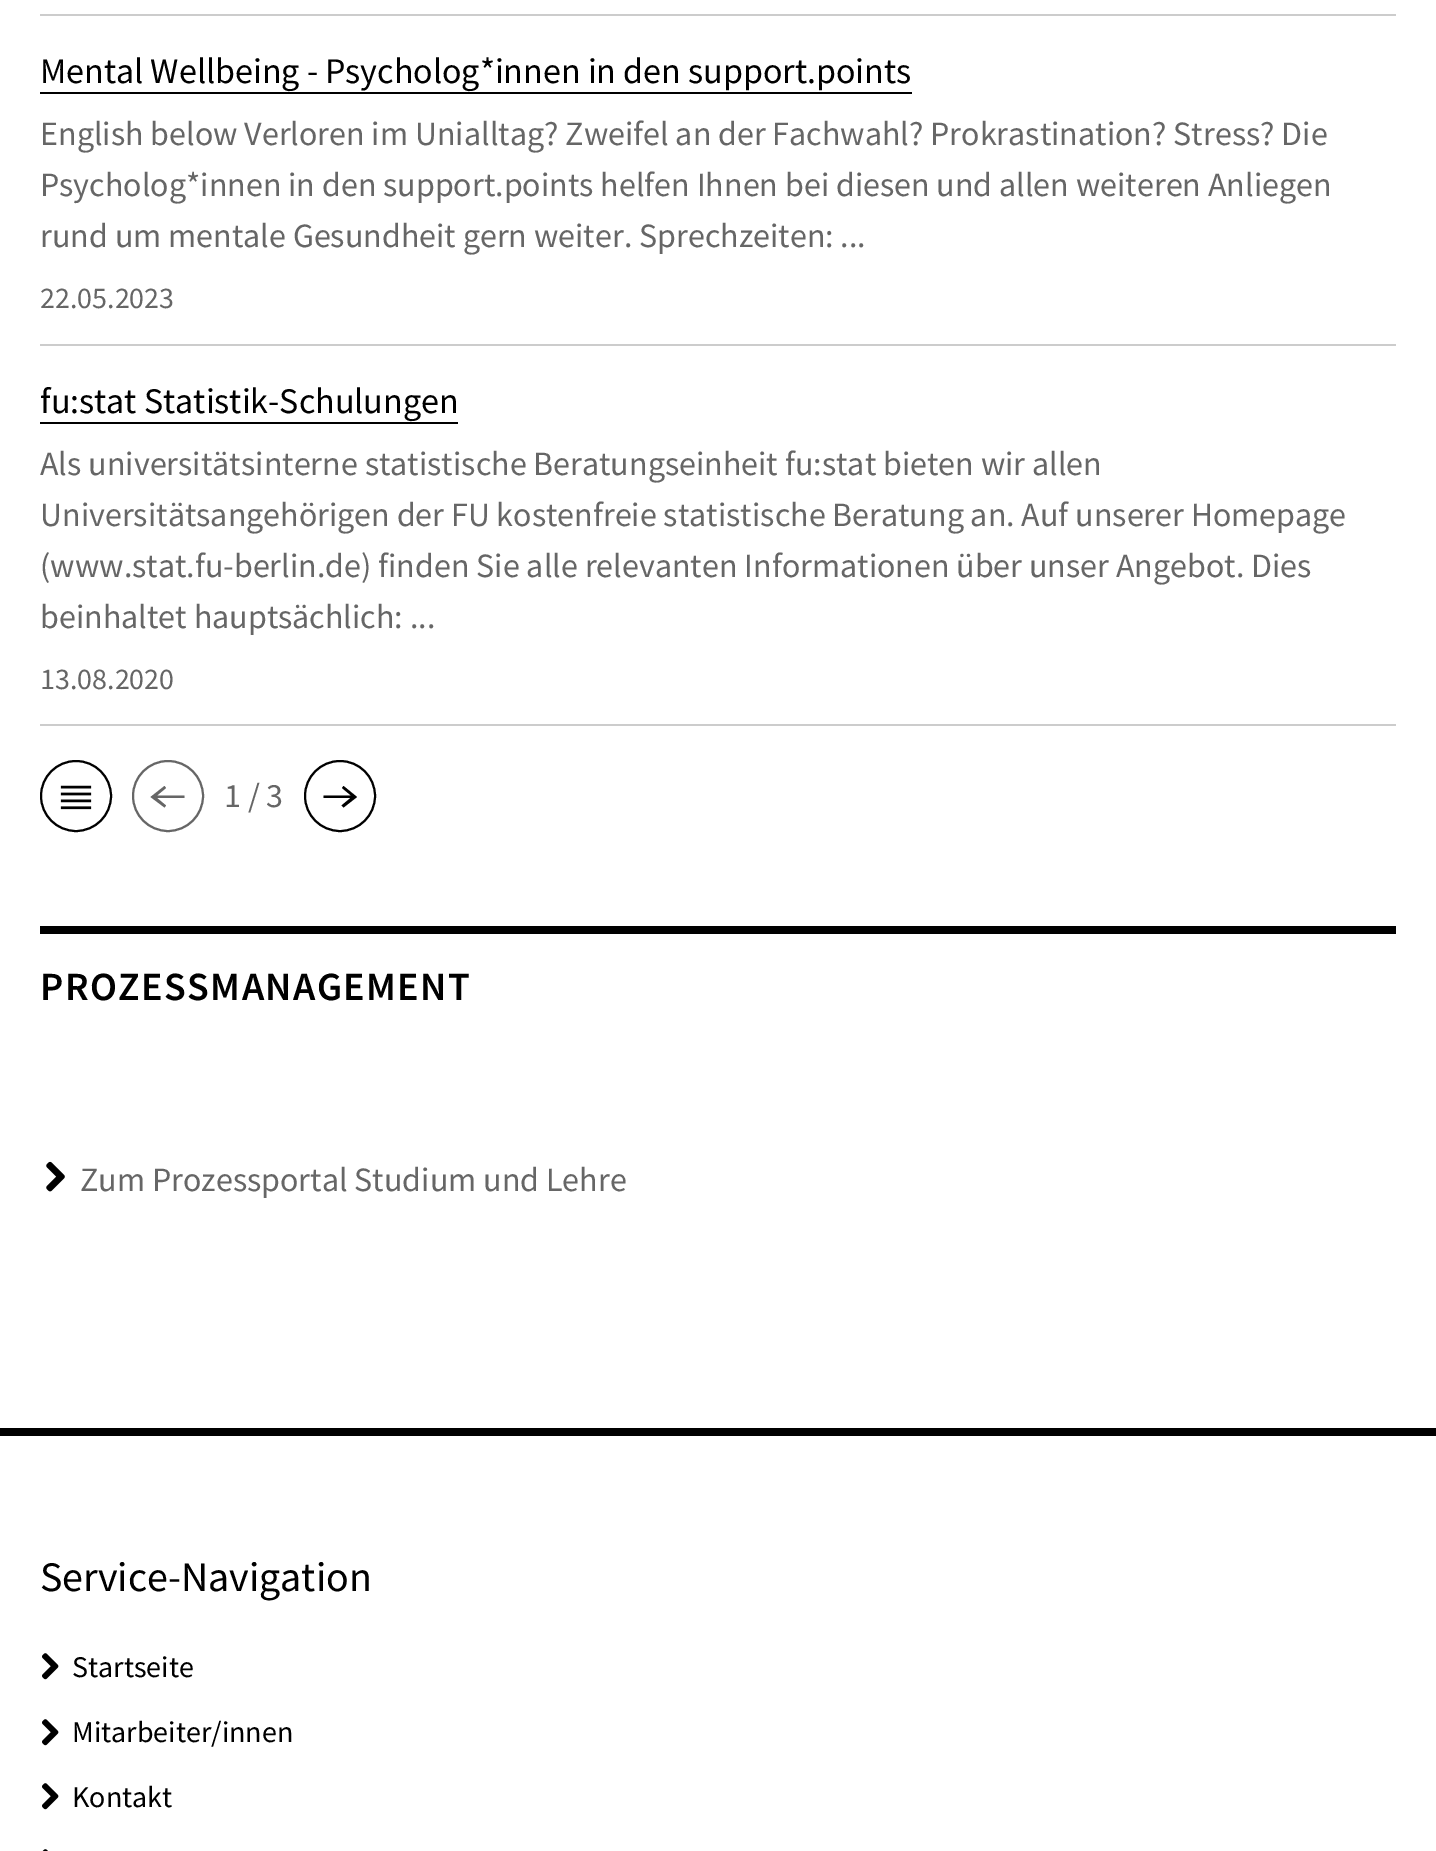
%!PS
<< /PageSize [1436 1851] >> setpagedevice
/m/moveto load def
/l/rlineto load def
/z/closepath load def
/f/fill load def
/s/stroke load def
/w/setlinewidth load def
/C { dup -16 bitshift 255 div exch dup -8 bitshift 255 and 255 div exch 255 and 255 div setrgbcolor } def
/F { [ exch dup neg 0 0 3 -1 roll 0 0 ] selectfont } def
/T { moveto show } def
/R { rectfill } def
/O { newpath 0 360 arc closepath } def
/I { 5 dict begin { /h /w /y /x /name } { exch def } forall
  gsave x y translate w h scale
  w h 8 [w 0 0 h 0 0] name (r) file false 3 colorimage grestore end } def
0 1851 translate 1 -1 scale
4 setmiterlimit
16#FFFFFF C
0 0 1436 1851 R
16#CCCCCC C
40 14 1356 2 R
40 344 1356 2 R
/SourceSansPro-Regular 36 F
16#000000 C
(Mental Wellbeing - Psycholog*innen in den support.points) 40 83 T
40 92 872 2 R
/SourceSansPro-Regular 34 F
16#666666 C
(English below Verloren im Unialltag? Zweifel an der Fachwahl? Prokrastination? Stress? Die) 40 145 T
(Psycholog*innen in den support.points helfen Ihnen bei diesen und allen weiteren Anliegen) 40 196 T
(rund um mentale Gesundheit gern weiter. Sprechzeiten: ...) 40 247 T
/SourceSansPro-Regular 30 F
(22.05.2023) 40 308 T
16#CCCCCC C
40 724 1356 2 R
/SourceSansPro-Regular 36 F
16#000000 C
(fu:stat Statistik-Schulungen) 40 413 T
40 422 418 2 R
/SourceSansPro-Regular 34 F
16#666666 C
(Als universitätsinterne statistische Beratungseinheit fu:stat bieten wir allen) 40 475 T
(Universitätsangehörigen der FU kostenfreie statistische Beratung an. Auf unserer Homepage) 40 526 T
(\(www.stat.fu-berlin.de\) finden Sie alle relevanten Informationen über unser Angebot. Dies) 40 577 T
(beinhaltet hauptsächlich: ...) 40 628 T
/SourceSansPro-Regular 30 F
(13.08.2020) 40 689 T
16#000000 C
2 w
76 796 35 O s
(1.rgb) 60 785 32 25 I
16#666666 C
168 796 35 O s
184.5 795.5 m -27.5 0 l 9 -7.5 l -1.5 -2 l -14 11 l 14 10.5 l 1.5 -2 l -9 -7.5 l 27.5 0 l z f
/SourceSansPro-Regular 34 F
(1 / 3) 224 807 T
16#000000 C
340 796 35 O s
343.5 786 m -1.5 2 l 9 7.5 l -27.5 0 l 0 2.5 l 27 0 l -9 7.5 l 2 2 l 13.5 -10.5 l z f
40 926 1356 8 R
/SourceSansPro-SemiBold 40 F
40 1000 m 1.4 0 (PROZESSMANAGEMENT) ashow
(2.rgb) 46 1161 19 31 I
/SourceSansPro-Regular 34 F
16#666666 C
(Zum Prozessportal Studium und Lehre) 80 1191 T
16#000000 C
0 1428 1436 8 R
/SourceSansPro-Regular 42 F
(Service-Navigation) 40 1591 T
(3.rgb) 42 1653 17 27 I
/SourceSansPro-Regular 30 F
(Startseite) 72 1677 T
(3.rgb) 42 1719 17 27 I
(Mitarbeiter/innen) 72 1742 T
(3.rgb) 42 1783 17 27 I
(Kontakt) 72 1807 T
(4.rgb) 42 1849 6 2 I
showpage
